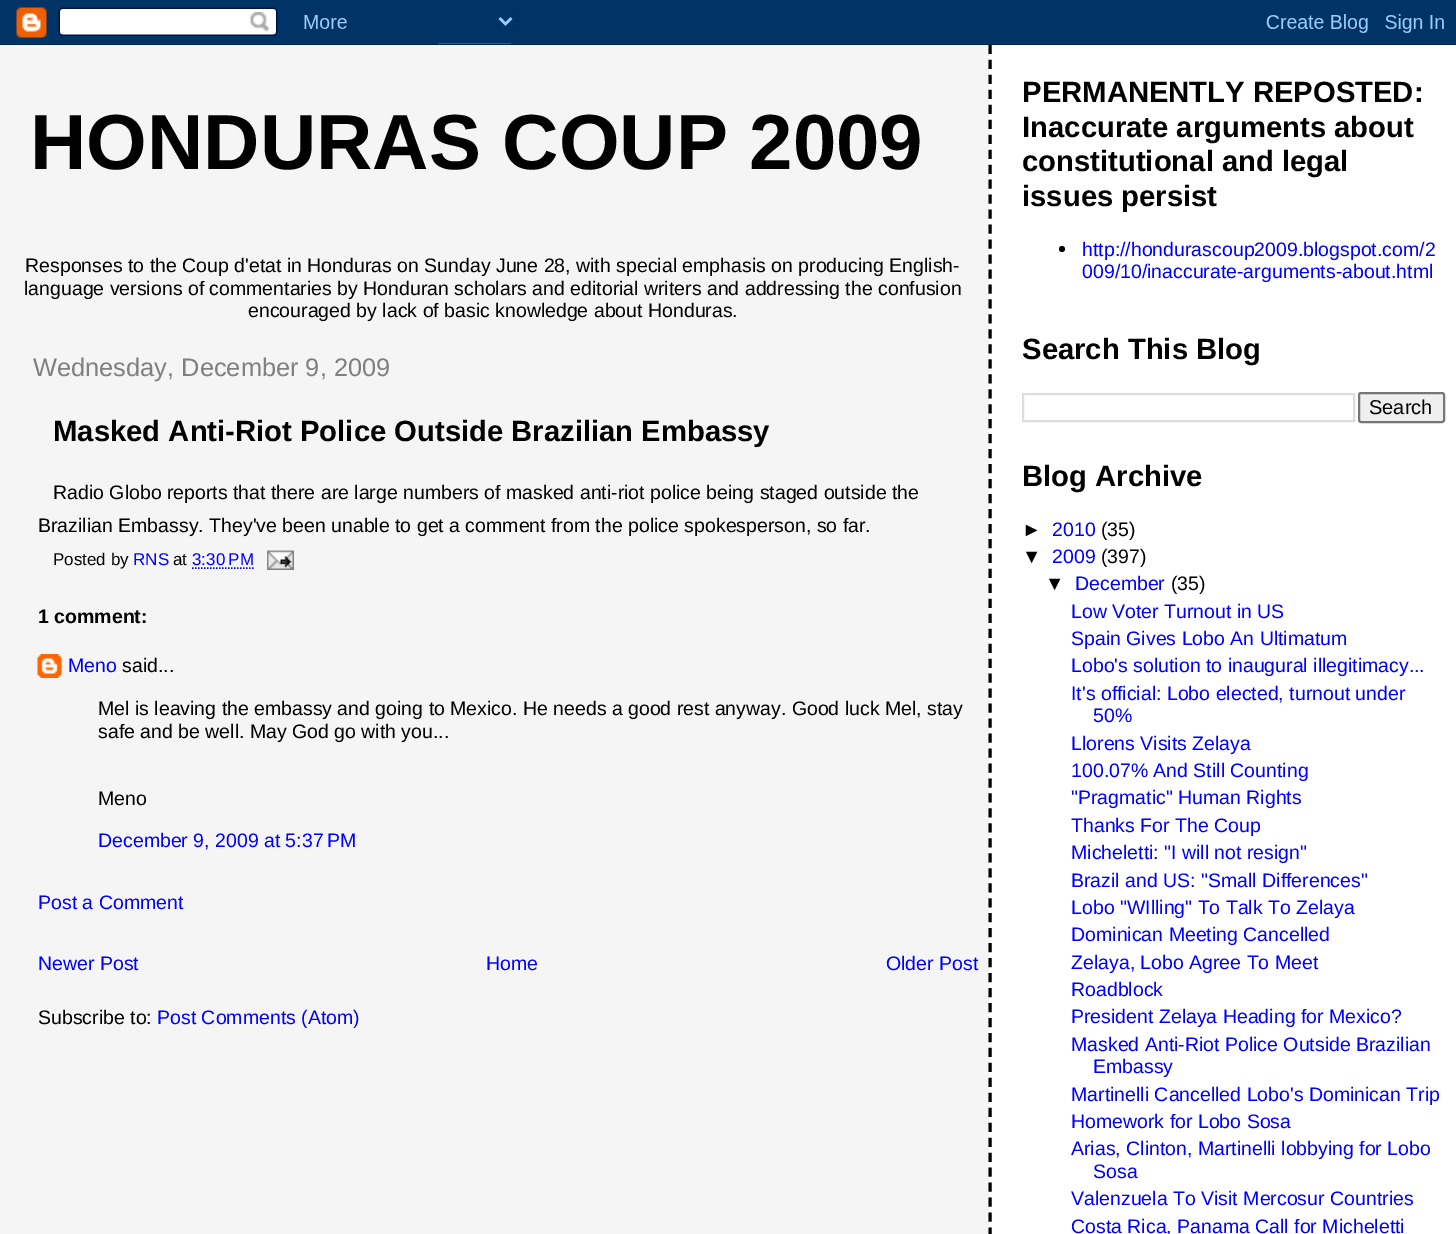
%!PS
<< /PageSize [1456 1234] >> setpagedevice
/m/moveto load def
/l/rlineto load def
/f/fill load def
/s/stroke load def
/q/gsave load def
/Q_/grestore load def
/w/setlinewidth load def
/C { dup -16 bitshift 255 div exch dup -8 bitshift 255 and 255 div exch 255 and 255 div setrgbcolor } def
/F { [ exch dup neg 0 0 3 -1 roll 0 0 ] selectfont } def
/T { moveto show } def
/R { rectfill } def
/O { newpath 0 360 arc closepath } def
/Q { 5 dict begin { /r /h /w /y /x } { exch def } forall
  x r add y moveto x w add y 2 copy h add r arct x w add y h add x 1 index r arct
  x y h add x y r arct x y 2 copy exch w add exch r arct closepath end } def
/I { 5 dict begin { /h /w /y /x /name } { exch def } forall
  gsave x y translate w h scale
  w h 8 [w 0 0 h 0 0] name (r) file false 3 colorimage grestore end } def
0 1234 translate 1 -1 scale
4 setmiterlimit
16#F5F5F5 C
0 0 1456 1234 R
(1.rgb) 0 0 1456 45 I
/LiberationSans-Bold 78 F
16#000000 C
(HONDURAS COUP 2009) 30 169 T
/LiberationSans-Regular 19.5 F
(Responses to the Coup d'etat in Honduras on Sunday June 28, with special emphasis on producing English-) 25 272 T
(language versions of commentaries by Honduran scholars and editorial writers and addressing the confusion) 24 295 T
(encouraged by lack of basic knowledge about Honduras.) 248 317 T
/LiberationSans-Regular 25.4 F
16#808080 C
(Wednesday, December 9, 2009) 33 376 T
/LiberationSans-Bold 29.25 F
16#000000 C
(Masked Anti-Riot Police Outside Brazilian Embassy) 53 441 T
/LiberationSans-Regular 19.5 F
(Radio Globo reports that there are large numbers of masked anti-riot police being staged outside the) 53 499 T
(Brazilian Embassy. They've been unable to get a comment from the police spokesperson, so far.) 38 532 T
/LiberationSans-Regular 17 F
(Posted by) 53 565 T
16#0000FF C
(RNS) 133 565 T
16#000000 C
(at) 173 565 T
16#0000FF C
(3:30 PM) 192 565 T
1.5 w
[1.5 1.5] 0 setdash
192 568 m 61.5 0 l s
(2.rgb) 267 550 27 20 I
/LiberationSans-Bold 19.5 F
16#000000 C
(1 comment:) 38 623 T
(3.rgb) 37 654 25 24 I
/LiberationSans-Regular 19.5 F
16#0000FF C
(Meno) 68 672 T
16#000000 C
(said...) 122 672 T
(Mel is leaving the embassy and going to Mexico. He needs a good rest anyway. Good luck Mel, stay) 98 715 T
(safe and be well. May God go with you...) 98 738 T
(Meno) 98 805 T
16#0000FF C
(December 9, 2009 at 5:37 PM) 98 847 T
(Post a Comment) 38 909 T
(Newer Post) 38 970 T
(Home) 486 970 T
(Older Post) 886 970 T
16#000000 C
(Subscribe to:) 38 1024 T
16#0000FF C
(Post Comments \(Atom\)) 157 1024 T
16#FFFFFF C
989 45 467 1189 R
16#000000 C
3 w
[9 5.97] 0 setdash
990 45 m 0 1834.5 l s
/LiberationSans-Bold 29.25 F
(PERMANENTLY REPOSTED:) 1022 102 T
(Inaccurate arguments about) 1022 137 T
(constitutional and legal) 1022 171 T
(issues persist) 1022 206 T
1062 249 3 O f
/LiberationSans-Regular 19.5 F
16#0000FF C
(http://hondurascoup2009.blogspot.com/2) 1082 256 T
(009/10/inaccurate-arguments-about.html) 1082 278 T
/LiberationSans-Bold 29.25 F
16#000000 C
(Search This Blog) 1022 359 T
16#DDDDDD C
2 w
[] 0 setdash
1023 394 331 27 rectstroke
16#EFEFEF C
1359 393 85 29 2 Q q f Q_
16#767676 C
s
/LiberationSans-Regular 20 F
16#000000 C
(Search) 1369 414 T
/LiberationSans-Bold 29.25 F
(Blog Archive) 1022 486 T
/LiberationSans-Regular 19.5 F
(►) 1022 536 T
16#0000FF C
(2010) 1052 536 T
16#000000 C
(\(35\)) 1101 536 T
(▼) 1022 563 T
16#0000FF C
(2009) 1052 563 T
16#000000 C
(\(397\)) 1101 563 T
(▼) 1045 590 T
16#0000FF C
(December) 1075 590 T
16#000000 C
(\(35\)) 1171 590 T
16#0000FF C
(Low Voter Turnout in US) 1071 618 T
(Spain Gives Lobo An Ultimatum) 1071 645 T
(Lobo's solution to inaugural illegitimacy...) 1071 672 T
(It's official: Lobo elected, turnout under) 1071 700 T
(50%) 1093 722 T
(Llorens Visits Zelaya) 1071 750 T
(100.07% And Still Counting) 1071 777 T
("Pragmatic" Human Rights) 1071 804 T
(Thanks For The Coup) 1071 832 T
(Micheletti: "I will not resign") 1071 859 T
(Brazil and US: "Small Differences") 1071 887 T
(Lobo "WIlling" To Talk To Zelaya) 1071 914 T
(Dominican Meeting Cancelled) 1071 941 T
(Zelaya, Lobo Agree To Meet) 1071 969 T
(Roadblock) 1071 996 T
(President Zelaya Heading for Mexico?) 1071 1023 T
(Masked Anti-Riot Police Outside Brazilian) 1071 1051 T
(Embassy) 1093 1073 T
(Martinelli Cancelled Lobo's Dominican Trip) 1071 1101 T
(Homework for Lobo Sosa) 1071 1128 T
(Arias, Clinton, Martinelli lobbying for Lobo) 1071 1155 T
(Sosa) 1093 1178 T
(Valenzuela To Visit Mercosur Countries) 1071 1205 T
(Costa Rica, Panama Call for Micheletti) 1071 1233 T
showpage
